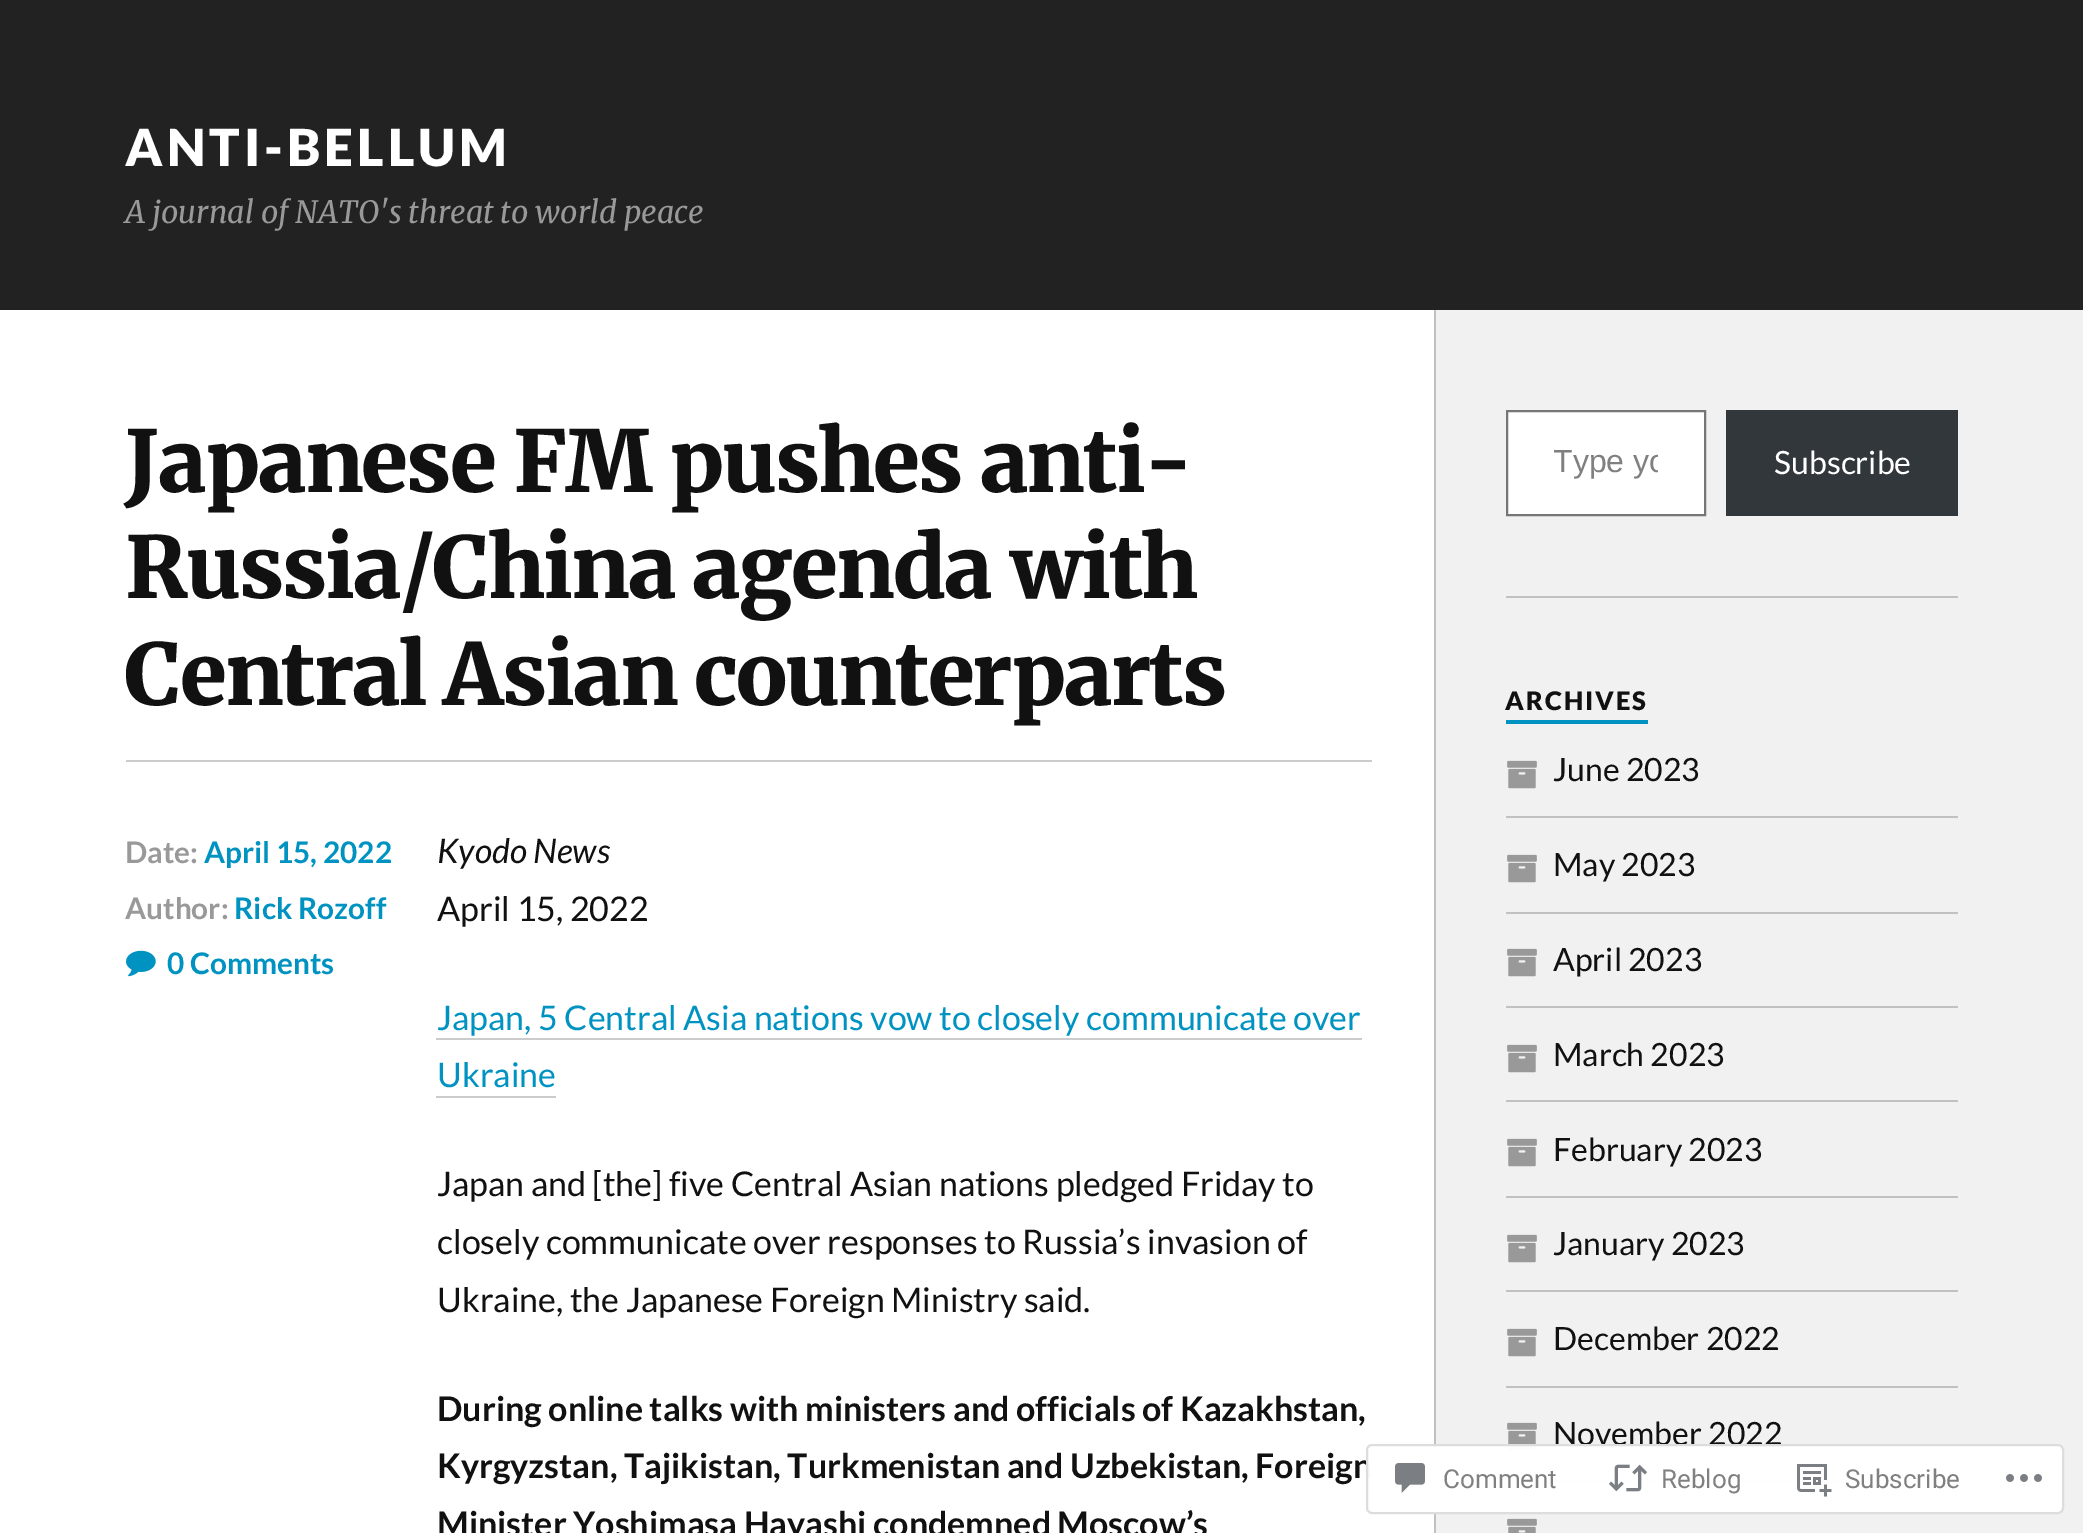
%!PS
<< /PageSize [2083 1533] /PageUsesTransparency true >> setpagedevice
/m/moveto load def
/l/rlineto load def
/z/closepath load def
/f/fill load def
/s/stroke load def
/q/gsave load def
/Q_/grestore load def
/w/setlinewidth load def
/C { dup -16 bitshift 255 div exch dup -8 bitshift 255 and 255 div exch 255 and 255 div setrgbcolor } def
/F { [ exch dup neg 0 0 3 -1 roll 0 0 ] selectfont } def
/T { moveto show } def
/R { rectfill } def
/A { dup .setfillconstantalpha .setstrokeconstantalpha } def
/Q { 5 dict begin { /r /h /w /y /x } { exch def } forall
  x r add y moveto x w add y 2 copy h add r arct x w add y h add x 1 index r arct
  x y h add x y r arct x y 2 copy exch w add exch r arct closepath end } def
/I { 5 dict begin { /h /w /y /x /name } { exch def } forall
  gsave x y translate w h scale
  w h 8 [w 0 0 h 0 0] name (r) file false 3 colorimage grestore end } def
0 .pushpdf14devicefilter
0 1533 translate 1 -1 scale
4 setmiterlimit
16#F1F1F1 C
0 0 2083 1533 R
16#222222 C
0 0 2083 310 R
/Lato-Black 51 F
16#FFFFFF C
125 166 m 4 0 (ANTI-BELLUM) ashow
/Merriweather-LightItalic 30.6 F
16#999999 C
(A journal of NATO's threat to world peace) 125 223 T
16#FFFFFF C
0 310 1434 1223 R
16#CCCCCC C
126 760 1246 2 R
/Merriweather-Black 85 F
16#111111 C
125 492 m -2 0 (Japanese FM pushes anti-) ashow
125 598 m -2 0 (Russia/China agenda with) ashow
125 705 m -2 0 (Central Asian counterparts) ashow
/Lato-Bold 29.75 F
16#999999 C
(Date:) 125 863 T
16#0093C2 C
(April 15, 2022) 204 863 T
16#999999 C
(Author:) 125 919 T
16#0093C2 C
(Rick Rozoff) 234 919 T
(1.rgb) 126 950 30 27 I
(0 Comments) 167 974 T
/Lato-Italic 34 F
16#111111 C
(Kyodo News) 437 863 T
/Lato-Regular 34 F
(April 15, 2022) 437 921 T
16#0093C2 C
(Japan, 5 Central Asia nations vow to closely communicate over) 437 1030 T
16#CCCCCC C
436 1038 926 2 R
16#0093C2 C
(Ukraine) 437 1087 T
16#CCCCCC C
436 1096 120 2 R
16#111111 C
(Japan and [the] five Central Asian nations pledged Friday to) 437 1196 T
(closely communicate over responses to Russia’s invasion of) 437 1254 T
(Ukraine, the Japanese Foreign Ministry said.) 437 1312 T
/Lato-Bold 34 F
(During online talks with ministers and officials of Kazakhstan,) 437 1421 T
(Kyrgyzstan, Tajikistan, Turkmenistan and Uzbekistan, Foreign) 437 1478 T
(Minister Yoshimasa Hayashi condemned Moscow’s) 437 1536 T
16#C1C1C1 C
1434 310 2 1223 R
16#FFFFFF C
1507 411 m 198 0 l 0 104 l -198 0 l z q f Q_
16#767676 C
2 w
s
q
1554 444 104 36 rectclip
/LiberationSans-Regular 32 F
16#808080 C
(Type yo) 1553 472 T
Q_
16#32373C C
1726 410 232 106 R
/Lato-Regular 32 F
16#FFFFFF C
(Subscribe) 1774 474 T
16#C1C1C1 C
1506 596 452 2 R
16#0093C2 C
1506 720 142 4 R
/Lato-Black 25.5 F
16#111111 C
1505 710 m 2 0 (ARCHIVES) ashow
16#C1C1C1 C
1506 816 452 2 R
(2.rgb) 1507 760 30 29 I
/Lato-Regular 32 F
16#111111 C
(June 2023) 1553 781 T
16#C1C1C1 C
1506 912 452 2 R
(2.rgb) 1507 854 30 29 I
16#111111 C
(May 2023) 1553 876 T
16#C1C1C1 C
1506 1006 452 2 R
(2.rgb) 1507 948 30 29 I
16#111111 C
(April 2023) 1553 971 T
16#C1C1C1 C
1506 1100 452 2 R
(2.rgb) 1507 1044 30 29 I
16#111111 C
(March 2023) 1553 1066 T
16#C1C1C1 C
1506 1196 452 2 R
(2.rgb) 1507 1138 30 29 I
16#111111 C
(February 2023) 1553 1161 T
16#C1C1C1 C
1506 1290 452 2 R
(2.rgb) 1507 1234 30 29 I
16#111111 C
(January 2023) 1553 1255 T
16#C1C1C1 C
1506 1386 452 2 R
(2.rgb) 1507 1328 30 29 I
16#111111 C
(December 2022) 1553 1350 T
16#C1C1C1 C
1506 1480 452 2 R
(2.rgb) 1507 1422 30 29 I
16#111111 C
(November 2022) 1553 1445 T
(3.rgb) 1507 1518 30 15 I
0.98 A
16#FFFFFF C
1366 1444 698 70 6 Q f
16#DCDCDE C
1367 1445 696 68 5 Q s
1 A
(4.rgb) 1395 1463 30 30 I
/Roboto-Regular 26 F
16#808080 C
(Comment) 1443 1488 T
(5.rgb) 1608 1464 40 28 I
(Reblog) 1661 1488 T
(6.rgb) 1797 1464 35 33 I
(Subscribe) 1845 1488 T
(7.rgb) 2006 1474 36 8 I
.poppdf14devicefilter showpage
